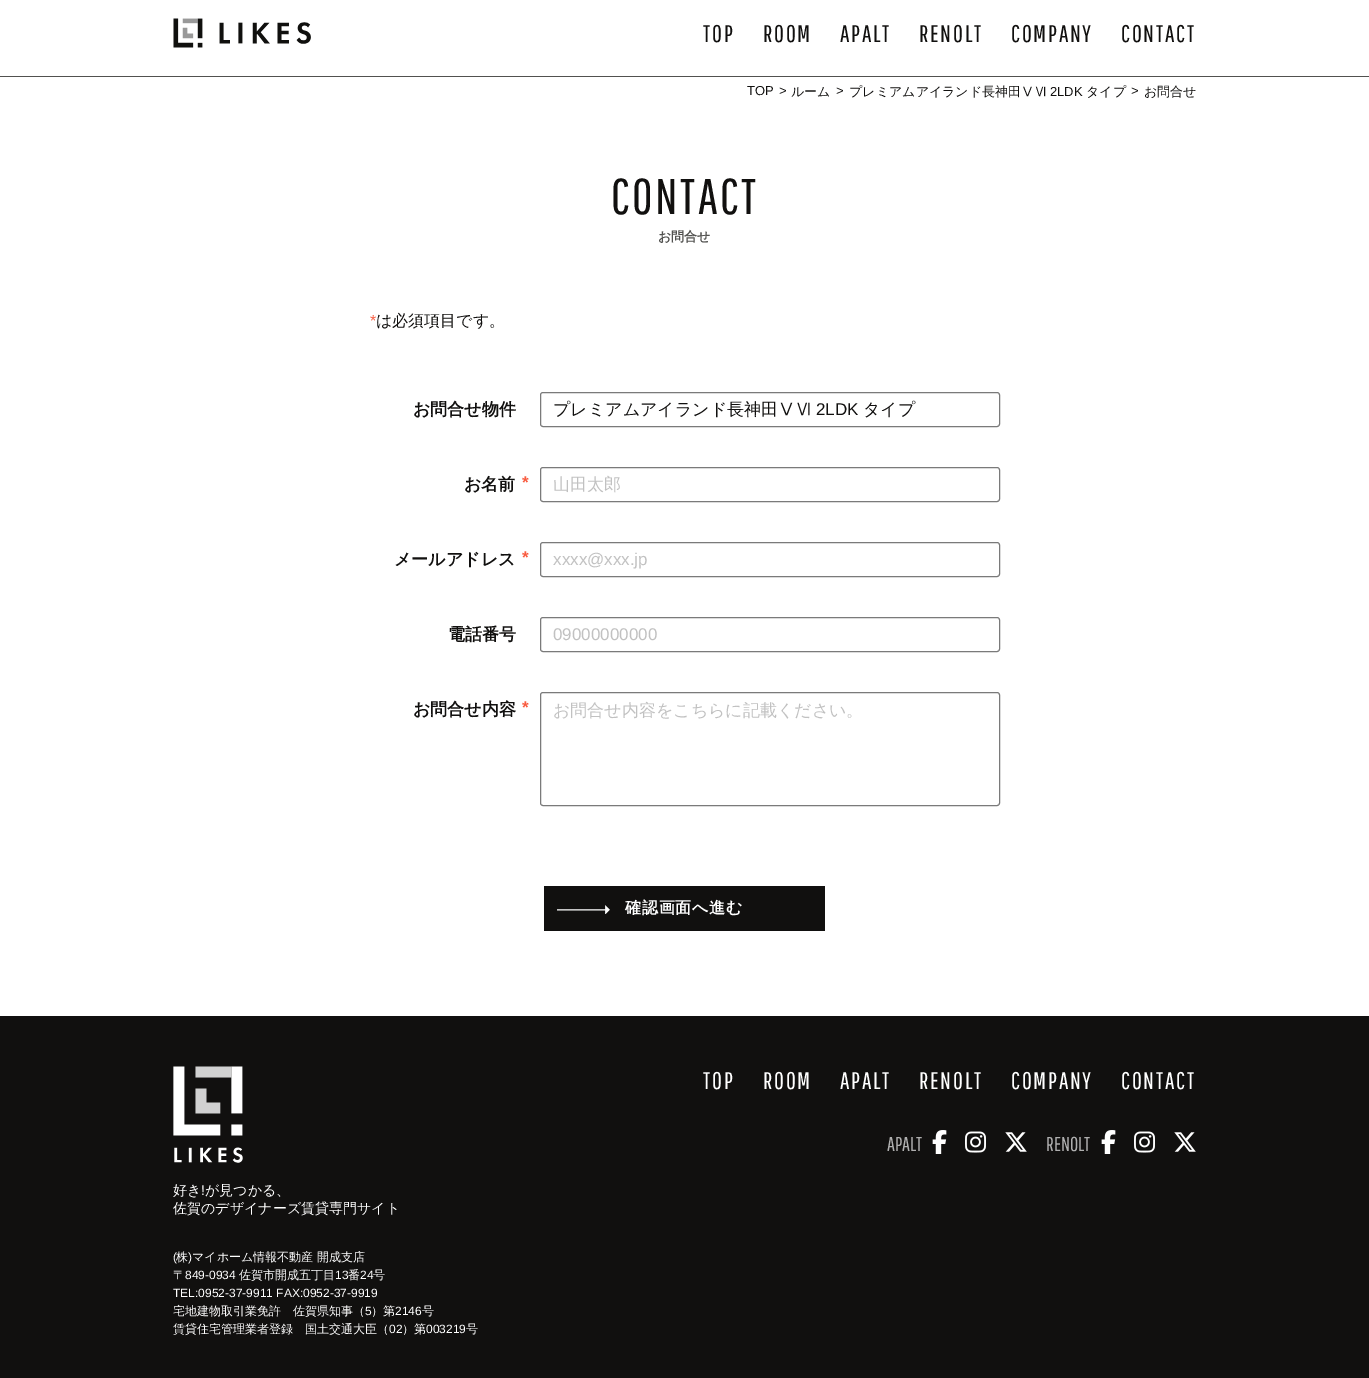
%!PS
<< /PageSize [1369 1378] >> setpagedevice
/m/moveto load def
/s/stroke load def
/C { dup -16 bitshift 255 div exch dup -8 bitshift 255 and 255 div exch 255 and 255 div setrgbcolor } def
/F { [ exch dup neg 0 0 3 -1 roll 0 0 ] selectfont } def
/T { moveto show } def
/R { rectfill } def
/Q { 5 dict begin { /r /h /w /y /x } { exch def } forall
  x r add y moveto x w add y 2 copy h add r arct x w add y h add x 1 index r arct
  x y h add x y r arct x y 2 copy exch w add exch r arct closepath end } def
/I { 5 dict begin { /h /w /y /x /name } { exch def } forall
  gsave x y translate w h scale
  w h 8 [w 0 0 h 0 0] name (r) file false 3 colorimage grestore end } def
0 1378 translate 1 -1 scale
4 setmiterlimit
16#FFFFFF C
0 0 1369 1378 R
(1.rgb) 173 18 138 30 I
/PathwayGothicOne-Regular 24 F
16#11100F C
703 42 m 1.75 0 (TOP) ashow
763 42 m 1.75 0 (ROOM) ashow
840 42 m 1.75 0 (APALT) ashow
919 42 m 1.75 0 (RENOLT) ashow
1011 42 m 1.75 0 (COMPANY) ashow
1121 42 m 1.75 0 (CONTACT) ashow
16#51514F C
0 76 1369 1 R
/LiberationSans-Regular 13 F
16#11100F C
(TOP) 747 95 T
(>) 779 95 T
/WenQuanYiZenHei-Medium 13 F
(ルーム) 791 96 T
/LiberationSans-Regular 13 F
(>) 836 95 T
/WenQuanYiZenHei-Medium 13 F
(プレミアムアイランド長神田ⅤⅥ) 849 96 T
/LiberationSans-Regular 13 F
(2LDK) 1050 96 T
/WenQuanYiZenHei-Medium 13 F
(タイプ) 1086 96 T
/LiberationSans-Regular 13 F
(>) 1131 95 T
/WenQuanYiZenHei-Medium 13 F
(お問合せ) 1144 96 T
/PathwayGothicOne-Regular 50 F
611 214 m 2.5 0 (CONTACT) ashow
/WenQuanYiZenHei-Bold 13 F
16#51514F C
(お問合せ) 658 241 T
/LiberationSans-Regular 16 F
16#F95B3F C
(*) 370 326 T
/WenQuanYiZenHei-Medium 16 F
16#11100F C
(は必須項目です。) 376 326 T
/WenQuanYiZenHei-Bold 17 F
(お問合せ物件) 413 415 T
16#7A7A7A C
540.5 392.5 459 34 2.5 Q s
/WenQuanYiZenHei-Medium 17 F
16#11100F C
(プレミアムアイランド長神田ⅤⅥ) 553 415 T
/LiberationSans-Regular 17 F
(2LDK) 816 415 T
/WenQuanYiZenHei-Medium 17 F
(タイプ) 863 415 T
/WenQuanYiZenHei-Bold 17 F
(お名前) 464 490 T
/LiberationSans-Bold 17 F
16#F95B3F C
(*) 522 488 T
16#7A7A7A C
540.5 467.5 459 34 2.5 Q s
/WenQuanYiZenHei-Medium 17 F
16#C1C1C1 C
(山田太郎) 553 490 T
/WenQuanYiZenHei-Bold 17 F
16#11100F C
(メールアドレス) 394 565 T
/LiberationSans-Bold 17 F
16#F95B3F C
(*) 522 563 T
16#7A7A7A C
540.5 542.5 459 34 2.5 Q s
/LiberationSans-Regular 17 F
16#C1C1C1 C
(xxxx@xxx.jp) 553 565 T
/WenQuanYiZenHei-Bold 17 F
16#11100F C
(電話番号) 448 640 T
16#7A7A7A C
540.5 617.5 459 34 2.5 Q s
/LiberationSans-Regular 17 F
16#C1C1C1 C
(09000000000) 553 640 T
/WenQuanYiZenHei-Bold 17 F
16#11100F C
(お問合せ内容) 413 715 T
/LiberationSans-Bold 17 F
16#F95B3F C
(*) 522 713 T
16#7A7A7A C
540.5 692.5 459 113 2.5 Q s
/WenQuanYiZenHei-Medium 17 F
16#C1C1C1 C
(お問合せ内容をこちらに記載ください。) 553 716 T
16#11100F C
544 886 281 45 R
(2.rgb) 557 905 53 9 I
/WenQuanYiZenHei-Bold 16 F
16#FFFFFF C
625 913 m .75 0 (確認画面へ進む) ashow
16#11100F C
0 1016 1369 362 R
/PathwayGothicOne-Regular 24 F
16#FFFFFF C
703 1089 m 1.75 0 (TOP) ashow
763 1089 m 1.75 0 (ROOM) ashow
840 1089 m 1.75 0 (APALT) ashow
919 1089 m 1.75 0 (RENOLT) ashow
1011 1089 m 1.75 0 (COMPANY) ashow
1121 1089 m 1.75 0 (CONTACT) ashow
/PathwayGothicOne-Regular 20 F
16#AFAFAF C
(APALT) 887 1151 T
(3.rgb) 932 1130 15 24 I
(4.rgb) 965 1131 21 22 I
(5.rgb) 1005 1132 22 20 I
(RENOLT) 1046 1151 T
(3.rgb) 1101 1130 15 24 I
(4.rgb) 1134 1131 21 22 I
(5.rgb) 1174 1132 22 20 I
(6.rgb) 173 1066 70 97 I
/WenQuanYiZenHei-Medium 14 F
16#FFFFFF C
(好き) 173 1195 T
/LiberationSans-Regular 14 F
(!) 201 1195 T
/WenQuanYiZenHei-Medium 14 F
(が見つかる、) 205 1195 T
(佐賀のデザイナーズ賃貸専門サイト) 173 1213 T
/LiberationSans-Regular 12 F
(\() 173 1261 T
/WenQuanYiZenHei-Medium 12 F
(株) 176 1261 T
/LiberationSans-Regular 12 F
(\)) 188 1261 T
/WenQuanYiZenHei-Medium 12 F
(マイホーム情報不動産 開成支店) 192 1261 T
(〒) 173 1279 T
/LiberationSans-Regular 12 F
(849-0934) 185 1279 T
/WenQuanYiZenHei-Medium 12 F
(佐賀市開成五丁目) 239 1279 T
/LiberationSans-Regular 12 F
(13) 335 1279 T
/WenQuanYiZenHei-Medium 12 F
(番) 348 1279 T
/LiberationSans-Regular 12 F
(24) 360 1279 T
/WenQuanYiZenHei-Medium 12 F
(号) 373 1279 T
/LiberationSans-Regular 12 F
(TEL:0952-37-9911 FAX:0952-37-9919) 173 1297 T
/WenQuanYiZenHei-Medium 12 F
(宅地建物取引業免許　佐賀県知事（) 173 1315 T
/LiberationSans-Regular 12 F
(5) 365 1315 T
/WenQuanYiZenHei-Medium 12 F
(）第) 371 1315 T
/LiberationSans-Regular 12 F
(2146) 395 1315 T
/WenQuanYiZenHei-Medium 12 F
(号) 422 1315 T
(賃貸住宅管理業者登録　国土交通大臣（) 173 1333 T
/LiberationSans-Regular 12 F
(02) 389 1333 T
/WenQuanYiZenHei-Medium 12 F
(）第) 402 1333 T
/LiberationSans-Regular 12 F
(003219) 426 1333 T
/WenQuanYiZenHei-Medium 12 F
(号) 466 1333 T
showpage
